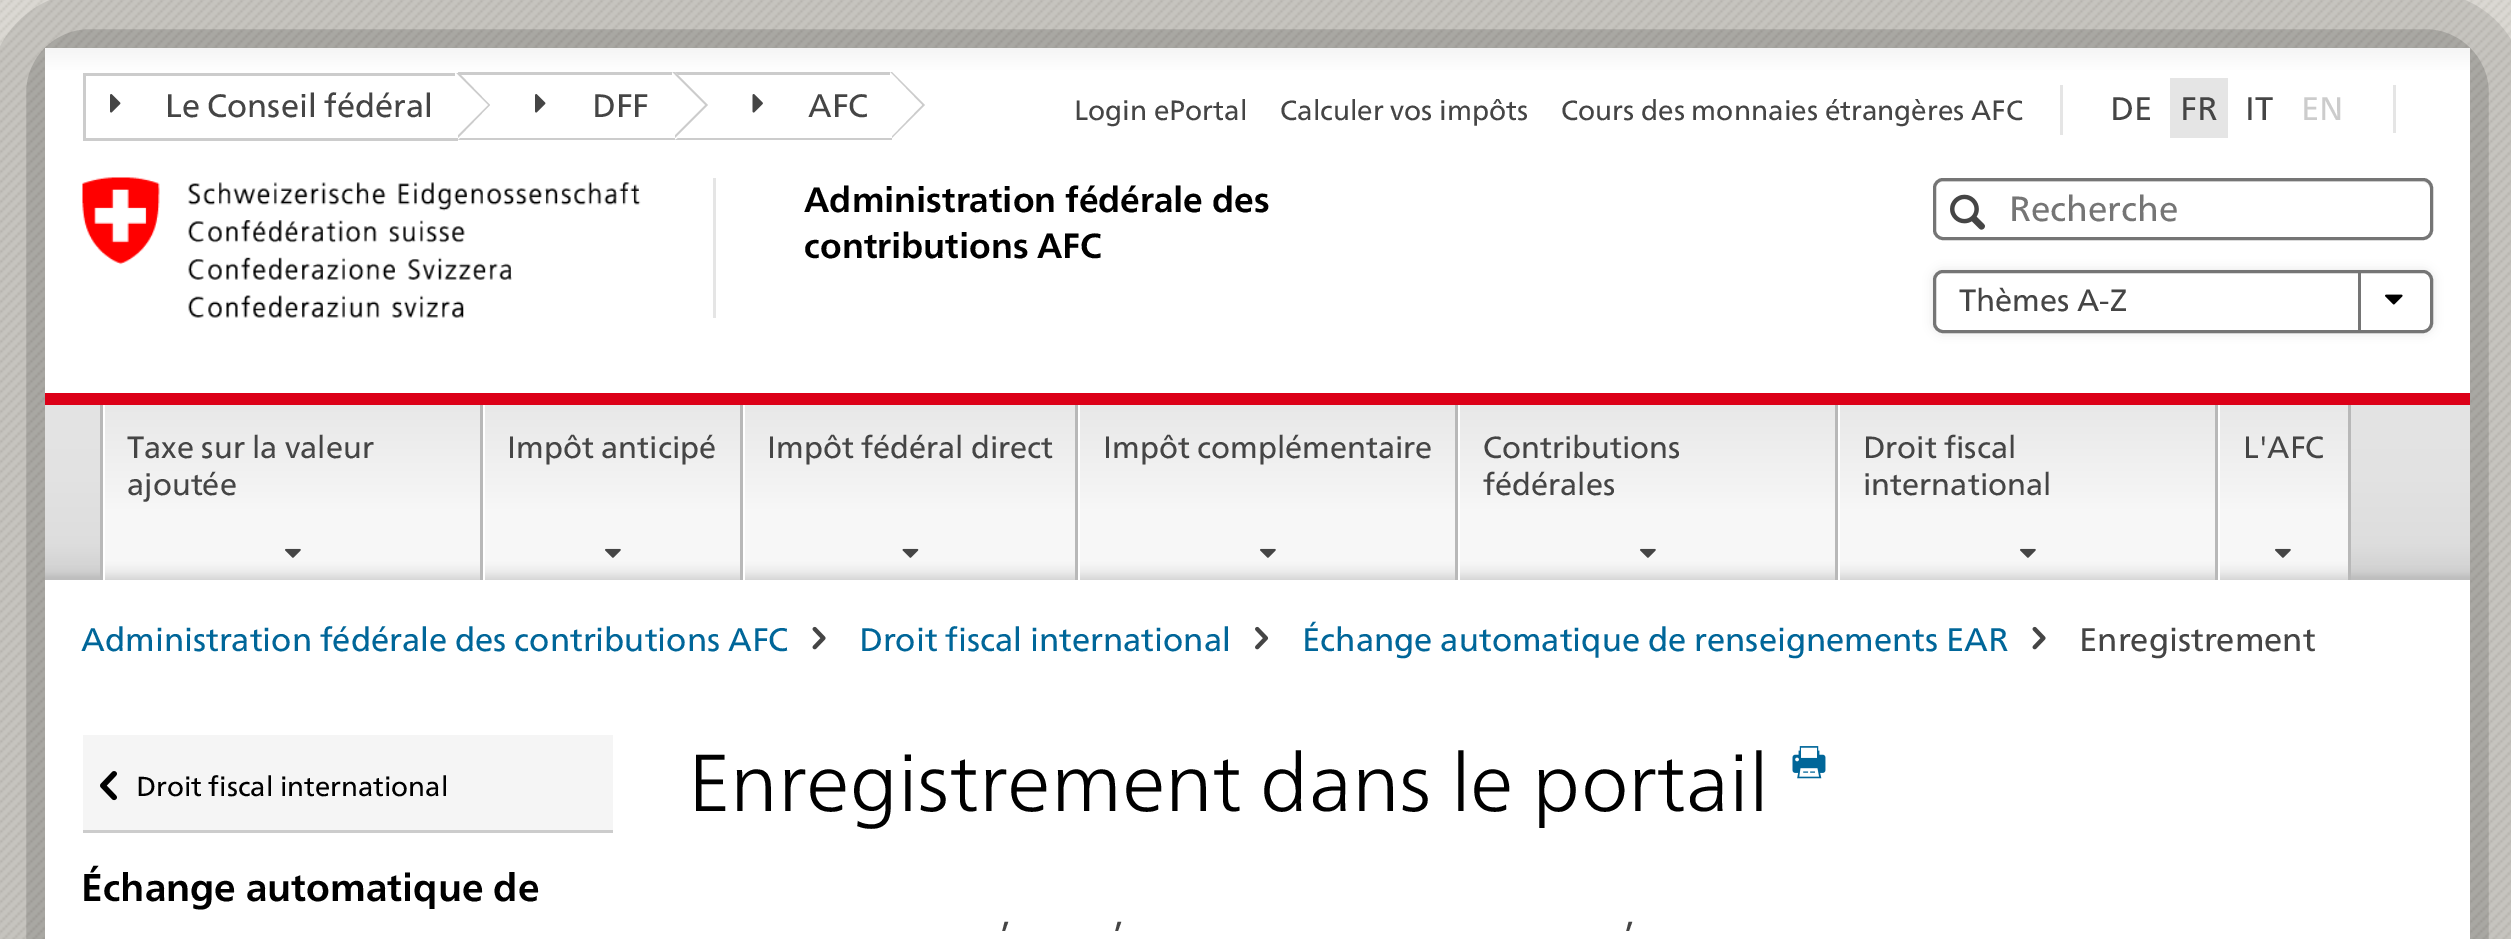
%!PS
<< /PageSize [2511 939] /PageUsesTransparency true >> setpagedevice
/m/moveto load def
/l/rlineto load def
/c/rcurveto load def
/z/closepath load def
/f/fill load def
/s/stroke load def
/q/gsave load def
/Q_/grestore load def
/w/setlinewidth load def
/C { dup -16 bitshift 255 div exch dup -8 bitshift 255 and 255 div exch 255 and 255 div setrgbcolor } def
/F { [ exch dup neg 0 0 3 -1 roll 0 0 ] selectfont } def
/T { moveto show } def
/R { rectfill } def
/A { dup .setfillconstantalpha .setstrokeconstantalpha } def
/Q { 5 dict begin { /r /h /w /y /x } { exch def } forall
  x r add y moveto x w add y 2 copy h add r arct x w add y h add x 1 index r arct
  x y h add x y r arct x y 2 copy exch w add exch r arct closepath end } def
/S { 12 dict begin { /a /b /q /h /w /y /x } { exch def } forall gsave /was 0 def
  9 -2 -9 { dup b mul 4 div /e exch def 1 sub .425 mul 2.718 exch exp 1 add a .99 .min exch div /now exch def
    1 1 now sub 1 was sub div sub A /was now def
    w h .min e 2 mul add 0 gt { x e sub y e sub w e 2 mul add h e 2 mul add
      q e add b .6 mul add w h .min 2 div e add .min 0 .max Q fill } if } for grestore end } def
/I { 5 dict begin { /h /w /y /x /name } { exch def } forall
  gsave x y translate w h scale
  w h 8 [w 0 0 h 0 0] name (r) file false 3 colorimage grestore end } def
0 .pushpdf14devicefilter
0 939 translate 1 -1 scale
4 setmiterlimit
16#FFFFFF C
0 0 2511 939 R
(1.rgb) 0 0 2511 939 I
16#000000 C
45 48 2425 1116 0 75 .6 S
16#FFFFFF C
45 580 2425 359 R
q 45 48 m 2425 0 l 0 345 l -2425 0 l z clip newpath
<< /ShadingType 2 /ColorSpace /DeviceRGB /Coords [1258 47 1258 393] /Extend [true true] /Function << /FunctionType 3 /Domain [0 1] /Functions [<< /FunctionType 2 /Domain [0 1] /C0 [.961 .961 .961] /C1 [1 1 1] /N 1 >> << /FunctionType 2 /Domain [0 1] /C0 [1 1 1] /C1 [1 1 1] /N 1 >>] /Bounds [.07] /Encode [0 1 0 1] >> >> shfill Q_
16#CCCCCC C
83 73 375 3 R
83 138 375 3 R
83 73 3 67 R
458 138 m 0 -66 l 32 33 l z f
16#FFFFFF C
455 138 m 0 -66 l 33 33 l z f
(2.rgb) 110 94 11 19 I
/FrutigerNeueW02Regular-Regular 32.5 F
16#454545 C
(Le Conseil fédéral) 165 117 T
16#CCCCCC C
458 72 m 217 0 l 0 3 l -215 0 l z f
675 140 m -217 0 l 2 -2 l 215 0 l z f
675 138 m 0 -66 l 33 33 l z f
16#FFFFFF C
672 138 m 0 -66 l 33 33 l z f
(2.rgb) 535 94 11 19 I
16#454545 C
(DFF) 592 117 T
16#CCCCCC C
675 72 m 217 0 l 0 3 l -214 0 l z f
892 140 m -217 0 l 3 -2 l 214 0 l z f
892 138 m 0 -66 l 33 33 l z f
16#FFFFFF C
890 138 m 0 -66 l 32 33 l z f
(3.rgb) 752 94 11 19 I
16#454545 C
(AFC) 808 117 T
/FrutigerNeueW02Regular-Regular 27.8 F
(Login ePortal) 1074 120 T
(Calculer vos impôts) 1280 120 T
(Cours des monnaies étrangères AFC) 1561 120 T
16#E5E5E5 C
2060 85 3 50 R
/FrutigerNeueW02Regular-Regular 32.75 F
16#454545 C
(DE) 2110 120 T
16#E5E5E5 C
2170 78 58 60 R
16#454545 C
(FR) 2180 120 T
(IT) 2245 120 T
16#CCCCCC C
(EN) 2301 120 T
16#E5E5E5 C
2393 85 3 48 R
713 178 3 140 R
(4.rgb) 82 177 559 141 I
/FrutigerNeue-Bold 35 F
16#000000 C
(Administration fédérale des) 804 212 T
(contributions AFC) 804 258 T
16#ECECEC C
1942 182 m 480 0 l 5 0 8 4 8 8 c 0 -2 l 0 -4 -4 -8 -8 -8 c -479 0 l -4 0 -8 4 -8 8 c 0 2 l 0 -4 3 -8 7 -8 c z f
16#757575 C
3 w
1934.5 179.5 497 59 8.5 Q s
(5.rgb) 1950 194 35 36 I
/FrutigerNeueW02Regular-Regular 35 F
(Recherche) 2009 221 T
16#000000 C
1933 270 500 63 10 5 .1 S
16#FFFFFF C
1934.5 271.5 497 60 8.5 Q q f Q_
16#757575 C
s
/FrutigerNeueW02Regular-Regular 30.75 F
16#454545 C
(Thèmes A-Z) 1959 311 T
16#757575 C
2358 273 3 57 R
(6.rgb) 2385 294 18 11 I
q 45 405 m 2425 0 l 0 175 l -2425 0 l z clip newpath
<< /ShadingType 2 /ColorSpace /DeviceRGB /Coords [1258 405 1258 580] /Extend [true true] /Function << /FunctionType 3 /Domain [0 1] /Functions [<< /FunctionType 2 /Domain [0 1] /C0 [.894 .894 .894] /C1 [.886 .886 .886] /N 1 >> << /FunctionType 2 /Domain [0 1] /C0 [.886 .886 .886] /C1 [.867 .867 .867] /N 1 >> << /FunctionType 2 /Domain [0 1] /C0 [.867 .867 .867] /C1 [.835 .835 .835] /N 1 >> << /FunctionType 2 /Domain [0 1] /C0 [.835 .835 .835] /C1 [.812 .812 .812] /N 1 >> << /FunctionType 2 /Domain [0 1] /C0 [.812 .812 .812] /C1 [.745 .745 .745] /N 1 >> << /FunctionType 2 /Domain [0 1] /C0 [.745 .745 .745] /C1 [.745 .745 .745] /N 1 >>] /Bounds [.39 .79 .91 .95 .99] /Encode [0 1 0 1 0 1 0 1 0 1 0 1] >> >> shfill Q_
16#DC0018 C
45 393 2425 12 R
16#B8B8B8 C
100 405 3 175 R
480 405 3 175 R
16#FFFFFF C
103 405 2 175 R
q 105 405 m 375 0 l 0 175 l -375 0 l z clip newpath
<< /ShadingType 2 /ColorSpace /DeviceRGB /Coords [293 405 293 580] /Extend [true true] /Function << /FunctionType 3 /Domain [0 1] /Functions [<< /FunctionType 2 /Domain [0 1] /C0 [.91 .91 .91] /C1 [.969 .969 .969] /N 1 >> << /FunctionType 2 /Domain [0 1] /C0 [.969 .969 .969] /C1 [.969 .969 .969] /N 1 >> << /FunctionType 2 /Domain [0 1] /C0 [.969 .969 .969] /C1 [.961 .961 .961] /N 1 >> << /FunctionType 2 /Domain [0 1] /C0 [.961 .961 .961] /C1 [.925 .925 .925] /N 1 >> << /FunctionType 2 /Domain [0 1] /C0 [.925 .925 .925] /C1 [.843 .843 .843] /N 1 >>] /Bounds [.61 .89 .91 .95] /Encode [0 1 0 1 0 1 0 1 0 1] >> >> shfill Q_
16#454545 C
(Taxe sur la valeur) 127 458 T
(ajoutée) 127 495 T
(7.rgb) 285 548 16 10 I
16#B8B8B8 C
740 405 3 175 R
16#FFFFFF C
483 405 2 175 R
q 485 405 m 255 0 l 0 175 l -255 0 l z clip newpath
<< /ShadingType 2 /ColorSpace /DeviceRGB /Coords [613 405 613 580] /Extend [true true] /Function << /FunctionType 3 /Domain [0 1] /Functions [<< /FunctionType 2 /Domain [0 1] /C0 [.91 .91 .91] /C1 [.969 .969 .969] /N 1 >> << /FunctionType 2 /Domain [0 1] /C0 [.969 .969 .969] /C1 [.969 .969 .969] /N 1 >> << /FunctionType 2 /Domain [0 1] /C0 [.969 .969 .969] /C1 [.961 .961 .961] /N 1 >> << /FunctionType 2 /Domain [0 1] /C0 [.961 .961 .961] /C1 [.925 .925 .925] /N 1 >> << /FunctionType 2 /Domain [0 1] /C0 [.925 .925 .925] /C1 [.843 .843 .843] /N 1 >>] /Bounds [.61 .89 .91 .95] /Encode [0 1 0 1 0 1 0 1 0 1] >> >> shfill Q_
16#454545 C
(Impôt anticipé) 507 458 T
(7.rgb) 605 548 16 10 I
16#B8B8B8 C
1075 405 3 175 R
16#FFFFFF C
743 405 2 175 R
q 745 405 m 330 0 l 0 175 l -330 0 l z clip newpath
<< /ShadingType 2 /ColorSpace /DeviceRGB /Coords [910 405 910 580] /Extend [true true] /Function << /FunctionType 3 /Domain [0 1] /Functions [<< /FunctionType 2 /Domain [0 1] /C0 [.91 .91 .91] /C1 [.969 .969 .969] /N 1 >> << /FunctionType 2 /Domain [0 1] /C0 [.969 .969 .969] /C1 [.969 .969 .969] /N 1 >> << /FunctionType 2 /Domain [0 1] /C0 [.969 .969 .969] /C1 [.961 .961 .961] /N 1 >> << /FunctionType 2 /Domain [0 1] /C0 [.961 .961 .961] /C1 [.925 .925 .925] /N 1 >> << /FunctionType 2 /Domain [0 1] /C0 [.925 .925 .925] /C1 [.843 .843 .843] /N 1 >>] /Bounds [.61 .89 .91 .95] /Encode [0 1 0 1 0 1 0 1 0 1] >> >> shfill Q_
16#454545 C
(Impôt fédéral direct) 767 458 T
(8.rgb) 902 548 17 10 I
16#B8B8B8 C
1455 405 3 175 R
16#FFFFFF C
1078 405 2 175 R
q 1080 405 m 375 0 l 0 175 l -375 0 l z clip newpath
<< /ShadingType 2 /ColorSpace /DeviceRGB /Coords [1268 405 1268 580] /Extend [true true] /Function << /FunctionType 3 /Domain [0 1] /Functions [<< /FunctionType 2 /Domain [0 1] /C0 [.91 .91 .91] /C1 [.969 .969 .969] /N 1 >> << /FunctionType 2 /Domain [0 1] /C0 [.969 .969 .969] /C1 [.969 .969 .969] /N 1 >> << /FunctionType 2 /Domain [0 1] /C0 [.969 .969 .969] /C1 [.961 .961 .961] /N 1 >> << /FunctionType 2 /Domain [0 1] /C0 [.961 .961 .961] /C1 [.925 .925 .925] /N 1 >> << /FunctionType 2 /Domain [0 1] /C0 [.925 .925 .925] /C1 [.843 .843 .843] /N 1 >>] /Bounds [.61 .89 .91 .95] /Encode [0 1 0 1 0 1 0 1 0 1] >> >> shfill Q_
16#454545 C
(Impôt complémentaire) 1103 458 T
(7.rgb) 1260 548 16 10 I
16#B8B8B8 C
1835 405 3 175 R
16#FFFFFF C
1458 405 2 175 R
q 1460 405 m 375 0 l 0 175 l -375 0 l z clip newpath
<< /ShadingType 2 /ColorSpace /DeviceRGB /Coords [1648 405 1648 580] /Extend [true true] /Function << /FunctionType 3 /Domain [0 1] /Functions [<< /FunctionType 2 /Domain [0 1] /C0 [.91 .91 .91] /C1 [.969 .969 .969] /N 1 >> << /FunctionType 2 /Domain [0 1] /C0 [.969 .969 .969] /C1 [.969 .969 .969] /N 1 >> << /FunctionType 2 /Domain [0 1] /C0 [.969 .969 .969] /C1 [.961 .961 .961] /N 1 >> << /FunctionType 2 /Domain [0 1] /C0 [.961 .961 .961] /C1 [.925 .925 .925] /N 1 >> << /FunctionType 2 /Domain [0 1] /C0 [.925 .925 .925] /C1 [.843 .843 .843] /N 1 >>] /Bounds [.61 .89 .91 .95] /Encode [0 1 0 1 0 1 0 1 0 1] >> >> shfill Q_
16#454545 C
(Contributions) 1483 458 T
(fédérales) 1483 495 T
(7.rgb) 1640 548 16 10 I
16#B8B8B8 C
2215 405 3 175 R
16#FFFFFF C
1838 405 2 175 R
q 1840 405 m 375 0 l 0 175 l -375 0 l z clip newpath
<< /ShadingType 2 /ColorSpace /DeviceRGB /Coords [2028 405 2028 580] /Extend [true true] /Function << /FunctionType 3 /Domain [0 1] /Functions [<< /FunctionType 2 /Domain [0 1] /C0 [.91 .91 .91] /C1 [.969 .969 .969] /N 1 >> << /FunctionType 2 /Domain [0 1] /C0 [.969 .969 .969] /C1 [.969 .969 .969] /N 1 >> << /FunctionType 2 /Domain [0 1] /C0 [.969 .969 .969] /C1 [.961 .961 .961] /N 1 >> << /FunctionType 2 /Domain [0 1] /C0 [.961 .961 .961] /C1 [.925 .925 .925] /N 1 >> << /FunctionType 2 /Domain [0 1] /C0 [.925 .925 .925] /C1 [.843 .843 .843] /N 1 >>] /Bounds [.61 .89 .91 .95] /Encode [0 1 0 1 0 1 0 1 0 1] >> >> shfill Q_
16#454545 C
(Droit fiscal) 1863 458 T
(international) 1863 495 T
(7.rgb) 2020 548 16 10 I
16#B8B8B8 C
2348 405 3 175 R
16#FFFFFF C
2218 405 2 175 R
q 2220 405 m 128 0 l 0 175 l -128 0 l z clip newpath
<< /ShadingType 2 /ColorSpace /DeviceRGB /Coords [2284 405 2284 580] /Extend [true true] /Function << /FunctionType 3 /Domain [0 1] /Functions [<< /FunctionType 2 /Domain [0 1] /C0 [.91 .91 .91] /C1 [.969 .969 .969] /N 1 >> << /FunctionType 2 /Domain [0 1] /C0 [.969 .969 .969] /C1 [.969 .969 .969] /N 1 >> << /FunctionType 2 /Domain [0 1] /C0 [.969 .969 .969] /C1 [.961 .961 .961] /N 1 >> << /FunctionType 2 /Domain [0 1] /C0 [.961 .961 .961] /C1 [.925 .925 .925] /N 1 >> << /FunctionType 2 /Domain [0 1] /C0 [.925 .925 .925] /C1 [.843 .843 .843] /N 1 >>] /Bounds [.61 .89 .91 .95] /Encode [0 1 0 1 0 1 0 1 0 1] >> >> shfill Q_
16#454545 C
(L'AFC) 2243 458 T
(7.rgb) 2275 548 16 10 I
/FrutigerNeueW02Regular-Regular 32.75 F
16#006699 C
(Administration fédérale des contributions AFC) 81 651 T
(9.rgb) 812 626 14 24 I
(Droit fiscal international) 859 651 T
(10.rgb) 1255 626 14 24 I
(Échange automatique de renseignements EAR) 1302 651 T
(9.rgb) 2032 626 14 24 I
16#454545 C
(Enregistrement) 2079 651 T
16#F5F5F5 C
83 735 530 95 R
16#CCCCCC C
83 830 530 3 R
(11.rgb) 100 771 17 30 I
/FrutigerNeueW02Regular-Regular 27.5 F
16#000000 C
(Droit fiscal international) 136 796 T
/FrutigerNeue-Bold 38.5 F
(Échange automatique de) 81 901 T
/FrutigerNeue-Light 80.5 F
(Enregistrement dans le portail) 688 811 T
(12.rgb) 1792 746 34 33 I
/FrutigerNeueW02Regular-Regular 38.5 F
16#454545 C
(’) 1000 950 T
(’) 1113 950 T
(’) 1624 950 T
.poppdf14devicefilter showpage
